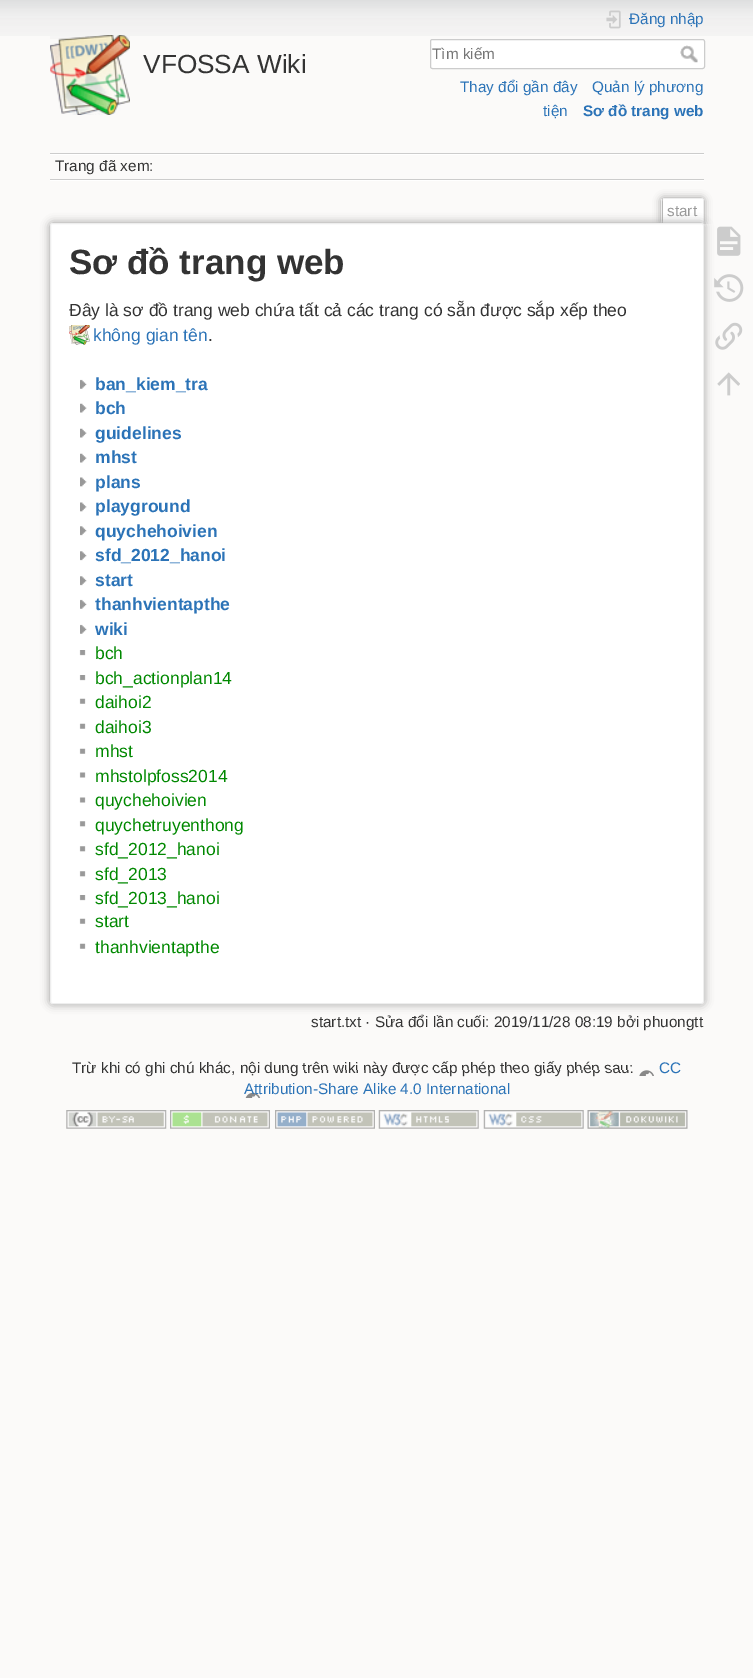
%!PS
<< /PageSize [753 1678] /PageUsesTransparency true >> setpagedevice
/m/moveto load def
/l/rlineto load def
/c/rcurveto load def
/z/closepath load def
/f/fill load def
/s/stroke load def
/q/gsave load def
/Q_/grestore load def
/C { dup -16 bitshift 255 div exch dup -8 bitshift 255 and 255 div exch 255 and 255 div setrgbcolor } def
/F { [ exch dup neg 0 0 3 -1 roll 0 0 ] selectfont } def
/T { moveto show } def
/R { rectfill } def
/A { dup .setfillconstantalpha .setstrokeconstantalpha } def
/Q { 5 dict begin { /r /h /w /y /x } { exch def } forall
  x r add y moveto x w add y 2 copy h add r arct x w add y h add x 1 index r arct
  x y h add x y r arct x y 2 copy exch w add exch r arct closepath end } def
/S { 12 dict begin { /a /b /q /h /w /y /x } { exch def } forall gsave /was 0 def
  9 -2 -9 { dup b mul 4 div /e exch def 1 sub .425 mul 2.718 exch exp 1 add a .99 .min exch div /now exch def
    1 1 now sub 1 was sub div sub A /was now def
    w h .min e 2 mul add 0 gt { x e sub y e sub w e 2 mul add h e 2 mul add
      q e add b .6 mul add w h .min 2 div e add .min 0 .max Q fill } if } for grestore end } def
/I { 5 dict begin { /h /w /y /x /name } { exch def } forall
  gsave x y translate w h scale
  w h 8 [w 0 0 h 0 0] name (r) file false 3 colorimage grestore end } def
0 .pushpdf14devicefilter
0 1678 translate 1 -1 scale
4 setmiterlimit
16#FBFAF9 C
0 0 753 1678 R
(1.rgb) 0 0 753 36 I
(2.rgb) 50 35 80 80 I
/LiberationSans-Regular 26.25 F
16#333333 C
(VFOSSA Wiki) 143 73 T
(3.rgb) 606 10 15 19 I
/LiberationSans-Regular 15.3 F
16#2B73B7 C
(Đăng nhập) 629 24 T
16#FFFFFF C
430.5 39.5 274 29 2 Q q f Q_
16#CCCCCC C
s
16#757575 C
(Tìm kiếm) 432 59 T
(4.rgb) 680 45 18 18 I
16#2B73B7 C
(Thay đổi gần đây) 460 92 T
(Quản lý phương) 592 92 T
(tiện) 543 116 T
/LiberationSans-Bold 15.3 F
(Sơ đồ trang web) 583 116 T
16#CCCCCC C
50 153 654 1 R
16#FFFFFF C
50 180 654 1 R
50 154 654 1 R
16#CCCCCC C
50 179 654 1 R
/LiberationSans-Regular 15.3 F
16#333333 C
(Trang đã xem:) 55 171 T
q
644 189 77 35 rectclip
16#999999 C
661 198 43 26 2.5 4 1 S
Q_
16#FFFFFF C
664 199 m 38 0 l .5 0 1 .5 1 1 c 0 24 l -40 0 l 0 -24 l 0 -.5 .5 -1 1 -1 c z f
16#EEEEEE C
663 198 40 1 R
703 199 1 25 R
661 199 1 25 R
16#999999 C
(start) 667 216 T
50 223 654 781 2.5 4.5 1 S
16#FFFFFF C
50.5 223.5 653 780 2 Q q f Q_
16#EEEEEE C
s
/LiberationSans-Bold 35 F
16#333333 C
(Sơ đồ trang web) 69 274 T
/LiberationSans-Regular 17.5 F
(Đây là sơ đồ trang web chứa tất cả các trang có sẵn được sắp xếp theo) 69 316 T
(5.rgb) 69 325 21 20 I
16#2B73B7 C
(không gian tên) 93 341 T
16#333333 C
(.) 208 341 T
(6.rgb) 80 379 7 10 I
/LiberationSans-Bold 17.5 F
16#2B73B7 C
(ban_kiem_tra) 95 390 T
(7.rgb) 80 403 7 10 I
(bch) 95 414 T
(7.rgb) 80 428 7 10 I
(guidelines) 95 439 T
(7.rgb) 80 453 7 10 I
(mhst) 95 463 T
(8.rgb) 80 477 7 10 I
(plans) 95 488 T
(8.rgb) 80 502 7 10 I
(playground) 95 512 T
(9.rgb) 80 526 7 10 I
(quychehoivien) 95 537 T
(9.rgb) 80 551 7 10 I
(sfd_2012_hanoi) 95 561 T
(9.rgb) 80 576 7 10 I
(start) 95 586 T
(6.rgb) 80 599 7 10 I
(thanhvientapthe) 95 610 T
(6.rgb) 80 624 7 10 I
(wiki) 95 635 T
(10.rgb) 79 650 7 6 I
/LiberationSans-Regular 17.5 F
16#008800 C
(bch) 95 659 T
(10.rgb) 79 675 7 6 I
(bch_actionplan14) 95 684 T
(11.rgb) 79 698 7 6 I
(daihoi2) 95 708 T
(11.rgb) 79 723 7 6 I
(daihoi3) 95 733 T
(11.rgb) 79 748 7 6 I
(mhst) 95 757 T
(12.rgb) 79 772 7 6 I
(mhstolpfoss2014) 95 782 T
(12.rgb) 79 797 7 6 I
(quychehoivien) 95 806 T
(13.rgb) 79 821 7 6 I
(quychetruyenthong) 95 831 T
(13.rgb) 79 846 7 6 I
(sfd_2012_hanoi) 95 855 T
(13.rgb) 79 871 7 6 I
(sfd_2013) 95 880 T
(10.rgb) 79 895 7 6 I
(sfd_2013_hanoi) 95 904 T
(11.rgb) 79 918 7 6 I
(start) 95 927 T
(11.rgb) 79 943 7 6 I
(thanhvientapthe) 95 953 T
/LiberationSans-Regular 15.3 F
16#333333 C
(start.txt · Sửa đổi lần cuối: 2019/11/28 08:19 bởi phuongtt) 311 1027 T
(14.rgb) 717 226 24 30 I
(15.rgb) 714 274 30 28 I
(16.rgb) 715 322 28 28 I
(17.rgb) 717 372 23 24 I
(Trừ khi có ghi chú khác, nội dung trên wiki này được cấp phép theo giấy phép sau:) 72 1073 T
16#2B73B7 C
(CC) 659 1073 T
(18.rgb) 245 1070 409 28 I
(Attribution-Share Alike 4.0 International) 244 1094 T
(19.rgb) 66 1110 101 19 I
(20.rgb) 170 1110 100 19 I
(21.rgb) 275 1110 100 19 I
(22.rgb) 378 1110 101 19 I
(23.rgb) 483 1110 101 19 I
(24.rgb) 587 1110 101 19 I
.poppdf14devicefilter showpage
